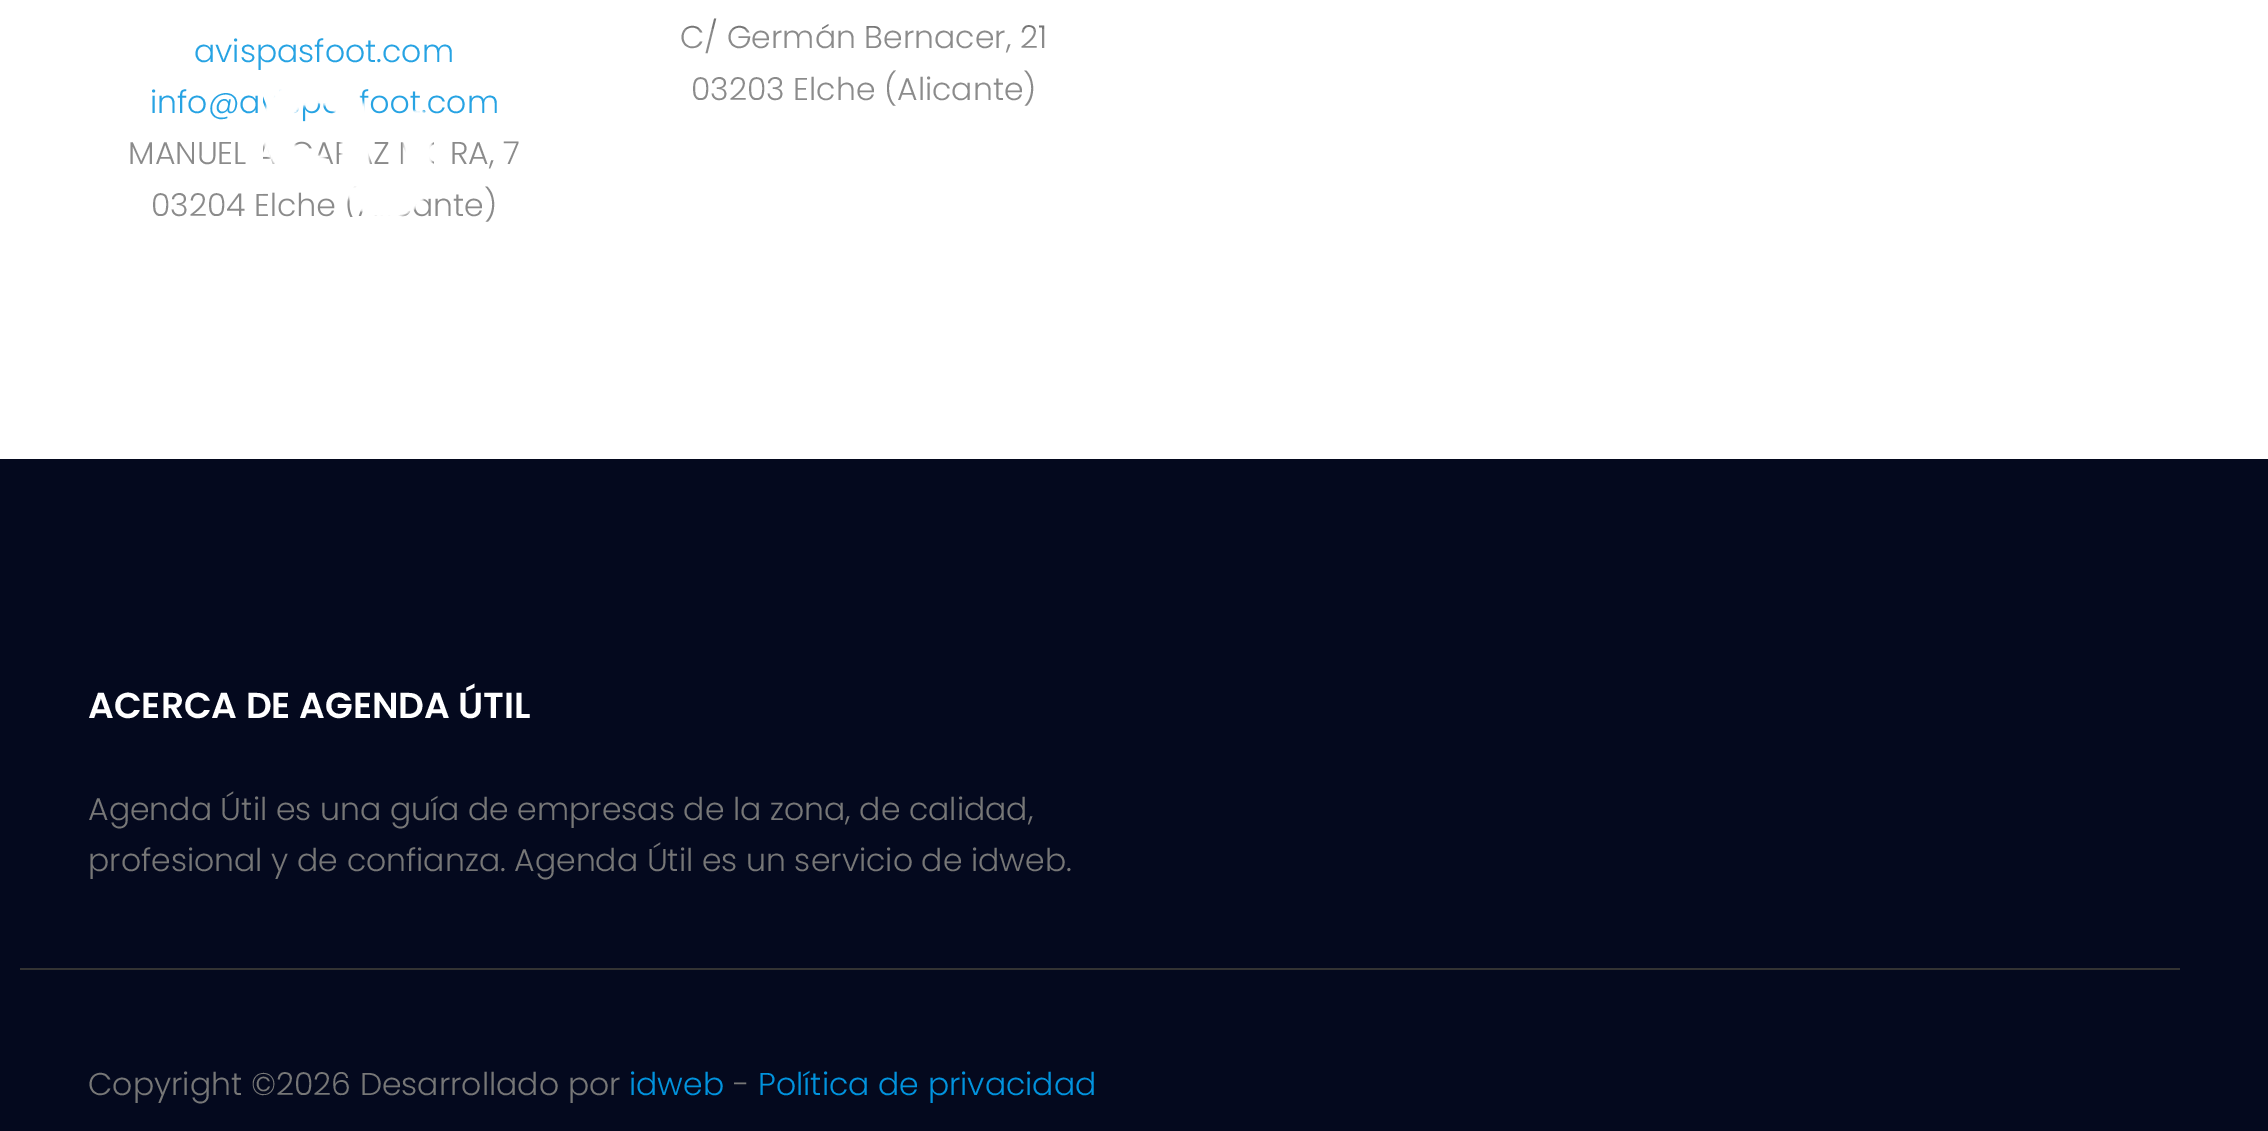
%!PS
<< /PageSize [2268 1131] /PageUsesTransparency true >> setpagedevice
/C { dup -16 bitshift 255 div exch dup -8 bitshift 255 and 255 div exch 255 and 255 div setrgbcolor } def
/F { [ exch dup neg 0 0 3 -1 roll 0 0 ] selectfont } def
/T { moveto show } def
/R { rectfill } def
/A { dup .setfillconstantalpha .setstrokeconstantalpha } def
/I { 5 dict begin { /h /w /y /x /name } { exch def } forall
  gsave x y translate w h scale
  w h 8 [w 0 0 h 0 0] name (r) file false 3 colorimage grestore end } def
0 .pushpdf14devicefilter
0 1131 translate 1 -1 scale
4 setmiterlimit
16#FFFFFF C
0 0 2268 1131 R
/Poppins-Light 31.5 F
16#0193DE C
(avispasfoot.com) 194 62 T
(info@a) 150 113 T
(oo) 369 113 T
(com) 427 113 T
16#777777 C
(MANUEL) 128 164 T
(Z) 373 164 T
(RA, 7) 450 164 T
(03204 Elche) 151 216 T
(nte\)) 433 216 T
(C/ Germán Bernacer, 21) 680 48 T
(03203 Elche \(Alicante\)) 691 100 T
0.15 A
16#FFFFFF C
130 29 915 193 R
1 A
(1.rgb) 263 89 171 128 I
16#04091E C
0 459 2268 672 R
/Poppins-SemiBold 36 F
16#FFFFFF C
(ACERCA DE AGENDA ÚTIL) 88 718 T
/Poppins-Light 31.5 F
16#777777 C
(Agenda Útil es una guía de empresas de la zona, de calidad,) 88 820 T
(profesional y de confianza. Agenda Útil es un servicio de idweb.) 88 871 T
16#333333 C
20 968 2160 2 R
16#777777 C
(Copyright ©2026 Desarrollado por) 88 1095 T
16#0193DE C
(idweb) 629 1095 T
16#777777 C
(-) 733 1095 T
16#0193DE C
(Política de privacidad) 758 1095 T
.poppdf14devicefilter showpage
